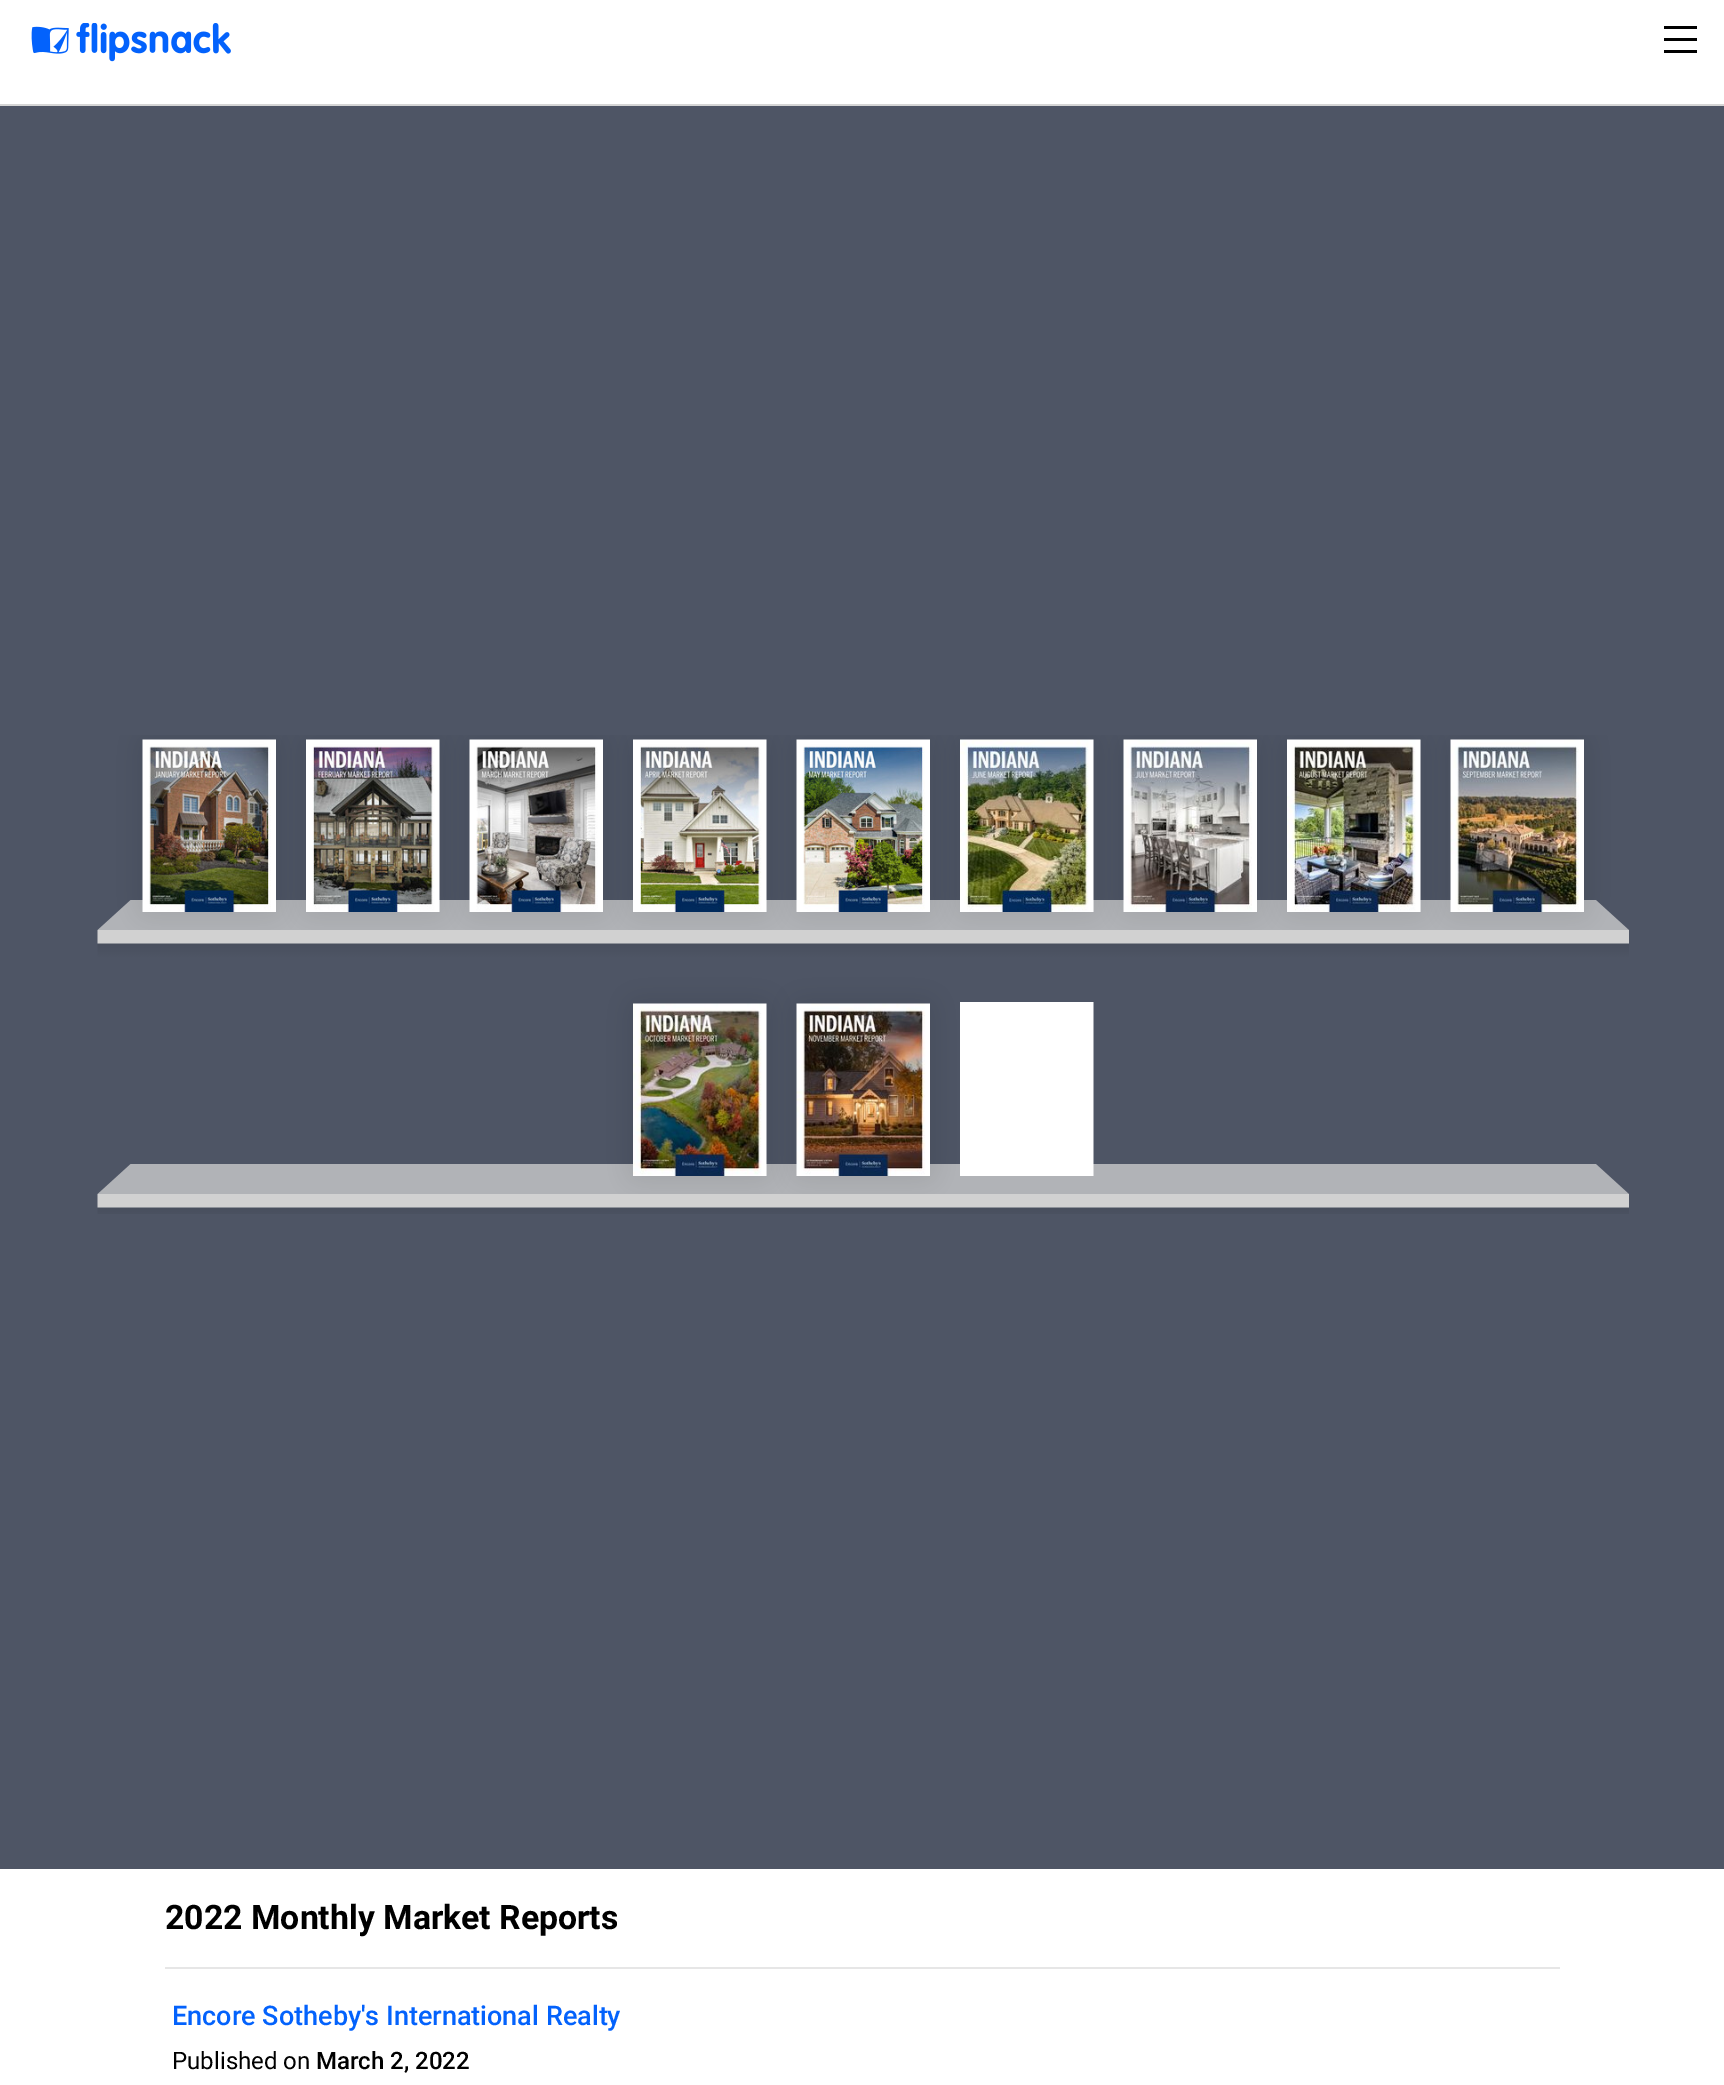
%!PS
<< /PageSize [1724 2085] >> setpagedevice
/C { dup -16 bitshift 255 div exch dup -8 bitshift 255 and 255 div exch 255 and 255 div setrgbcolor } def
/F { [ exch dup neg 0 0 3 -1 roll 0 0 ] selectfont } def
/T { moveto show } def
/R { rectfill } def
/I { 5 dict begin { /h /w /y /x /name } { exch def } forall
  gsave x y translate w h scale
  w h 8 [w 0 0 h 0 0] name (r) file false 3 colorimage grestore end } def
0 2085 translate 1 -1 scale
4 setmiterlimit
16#FFFFFF C
0 0 1724 2085 R
16#D5D5D5 C
0 104 1724 2 R
(1.rgb) 31 23 200 39 I
16#000000 C
1664 26 33 3 R
1664 38 33 3 R
1664 50 33 3 R
16#4E5565 C
0 106 1724 1763 R
(2.rgb) 97 735 1532 479 I
/Roboto-Bold 33.75 F
16#000000 C
(2022 Monthly Market Reports) 165 1929 T
16#E6E6E6 C
165 1967 1395 2 R
/Roboto-Medium 27 F
16#0362FC C
(Encore Sotheby's International Realty) 172 2025 T
/Roboto-Regular 24 F
16#000000 C
(Published on) 172 2069 T
/Roboto-Medium 24 F
(March 2, 2022) 316 2069 T
showpage
